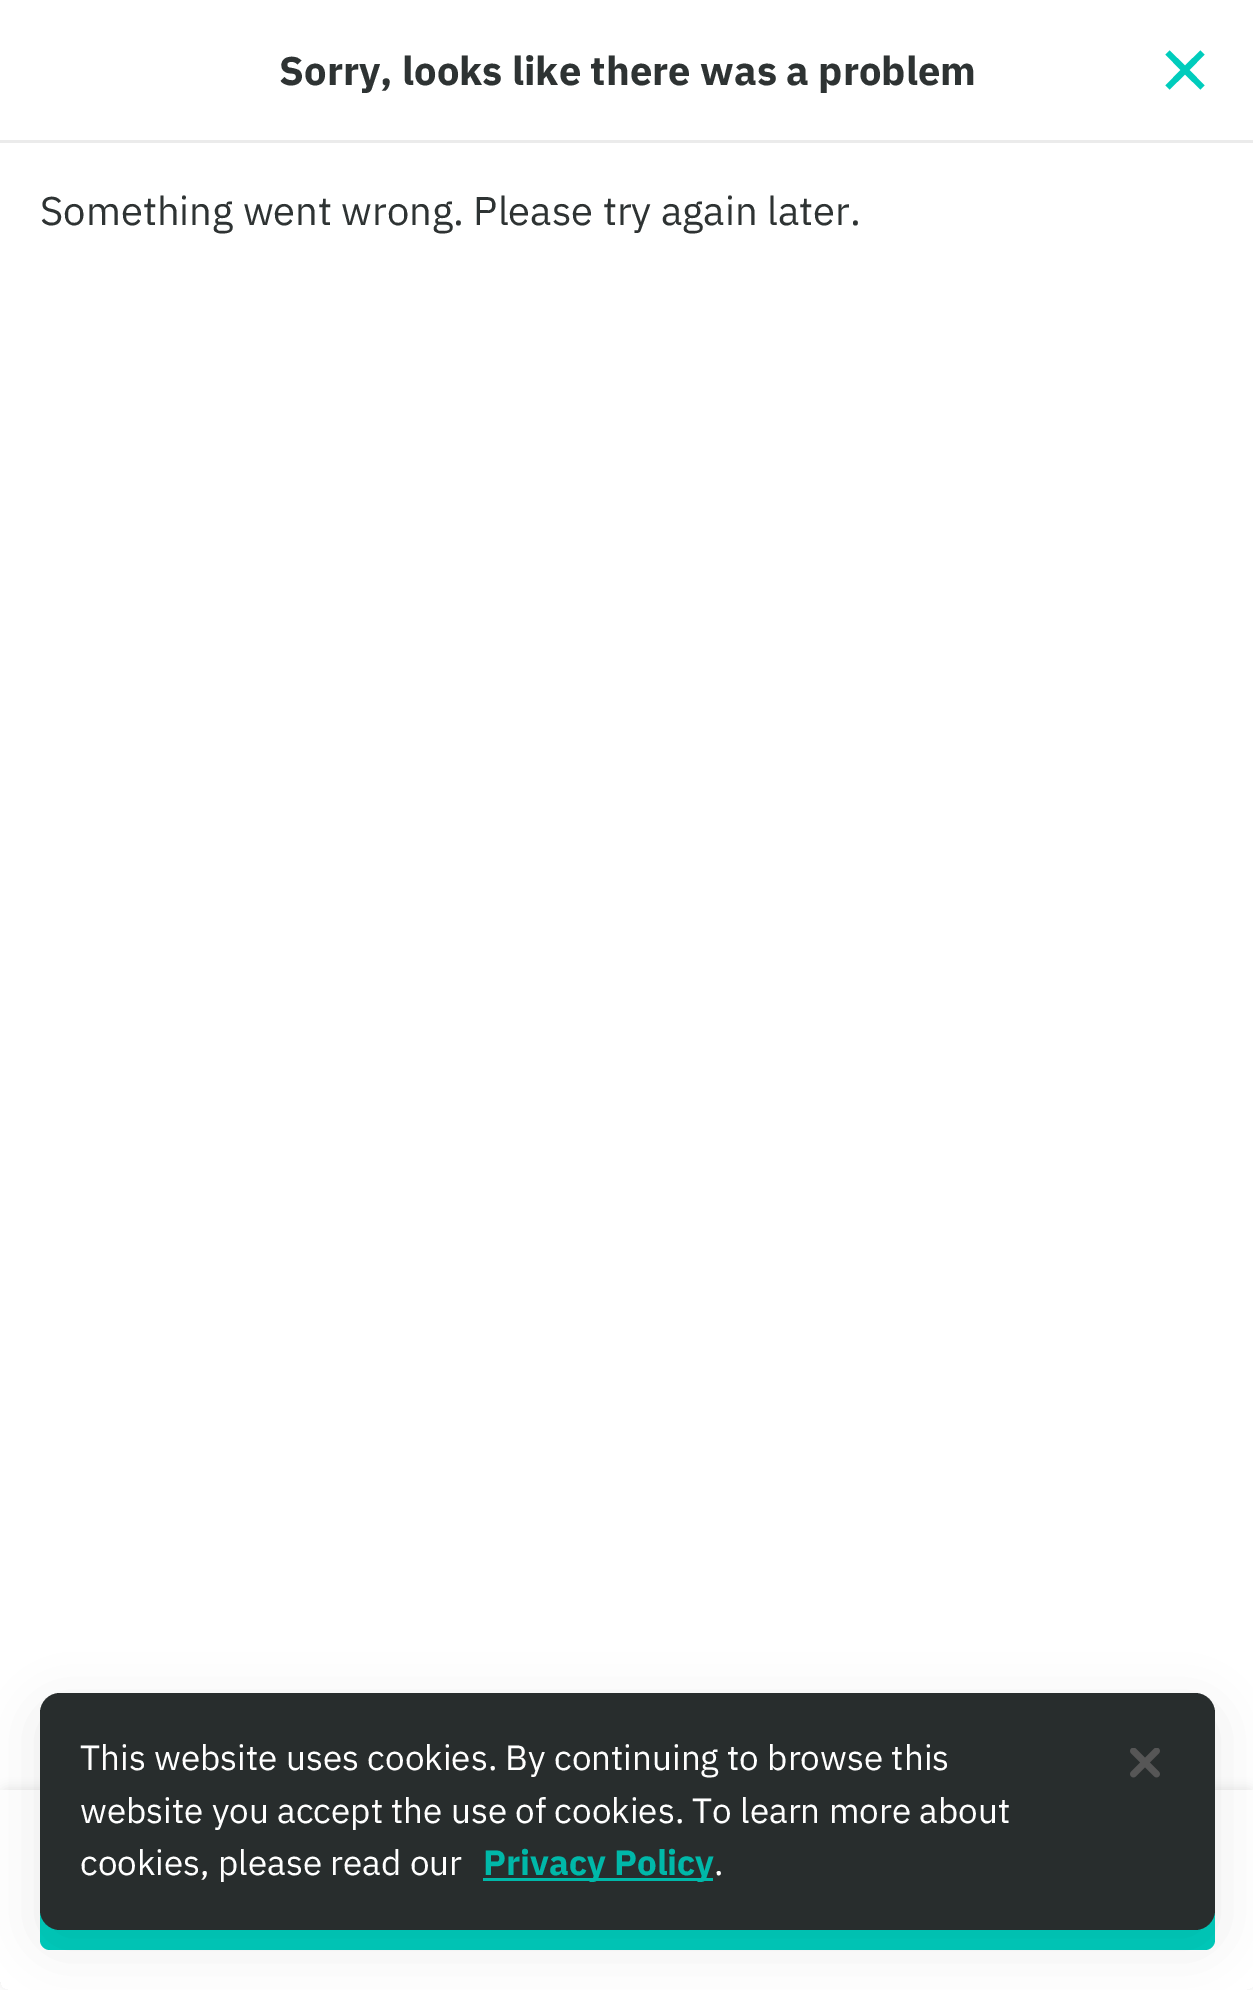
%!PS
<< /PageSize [1253 1990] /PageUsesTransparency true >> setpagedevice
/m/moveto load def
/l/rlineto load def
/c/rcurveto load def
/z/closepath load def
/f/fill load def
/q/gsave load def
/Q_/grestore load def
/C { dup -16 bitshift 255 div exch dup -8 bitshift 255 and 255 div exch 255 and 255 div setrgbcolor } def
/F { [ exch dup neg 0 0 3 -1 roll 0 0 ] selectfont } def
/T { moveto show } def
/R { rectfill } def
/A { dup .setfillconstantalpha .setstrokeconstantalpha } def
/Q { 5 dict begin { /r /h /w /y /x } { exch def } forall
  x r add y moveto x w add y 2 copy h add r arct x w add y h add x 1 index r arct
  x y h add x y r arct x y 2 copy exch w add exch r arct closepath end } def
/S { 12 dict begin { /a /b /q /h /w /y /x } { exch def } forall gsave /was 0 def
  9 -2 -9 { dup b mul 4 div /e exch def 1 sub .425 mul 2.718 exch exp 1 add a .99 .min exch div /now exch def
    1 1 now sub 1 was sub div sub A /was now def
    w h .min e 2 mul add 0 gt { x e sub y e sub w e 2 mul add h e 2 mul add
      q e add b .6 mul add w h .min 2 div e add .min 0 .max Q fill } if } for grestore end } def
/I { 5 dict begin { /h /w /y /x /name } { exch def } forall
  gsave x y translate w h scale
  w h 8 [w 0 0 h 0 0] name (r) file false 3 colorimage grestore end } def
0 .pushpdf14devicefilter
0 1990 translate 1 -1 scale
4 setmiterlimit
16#FFFFFF C
0 0 1253 1990 R
16#EBEBEB C
0 140 1253 3 R
/IBMPlexSans-Bold 40 F
16#2E3333 C
(Sorry, looks like there was a problem) 279 85 T
16#00CCBC C
1185 65.5 m -15.5 -15 l -4 4 l 15 15.5 l -15 15.5 l 4 4 l 15.5 -15 l 15.5 15 l 4 -4 l -15 -15.5 l 15 -15.5 l -4 -4 l z f
/IBMPlexSans-Regular 40 F
16#2E3333 C
(Something went wrong. Please try again later.) 40 225 T
q
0 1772 m 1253 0 l 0 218 l -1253 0 l z 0 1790 m 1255 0 l 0 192 l 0 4.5 -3.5 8 -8 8 c -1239 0 l -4.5 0 -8 -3.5 -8 -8 c z eoclip newpath
16#000000 C
0 1788 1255 200 8 5 .08 S
Q_
16#00CCBC C
40 1830 1175 120 10 Q f
16#000000 C
40 1708 1175 237 20 25 .08 S
16#282D2D C
40 1693 1175 237 20 Q f
/IBMPlexSans-Regular 35 F
16#FFFFFF C
(This website uses cookies. By continuing to browse this) 80 1770 T
(website you accept the use of cookies. To learn more about) 80 1823 T
(cookies, please read our) 80 1875 T
16#00B8A9 C
483 1878 230 3 R
/IBMPlexSans-Bold 35 F
(Privacy Policy) 483 1875 T
/IBMPlexSans-Regular 35 F
16#FFFFFF C
(.) 714 1875 T
(1.rgb) 1130 1748 30 30 I
.poppdf14devicefilter showpage
